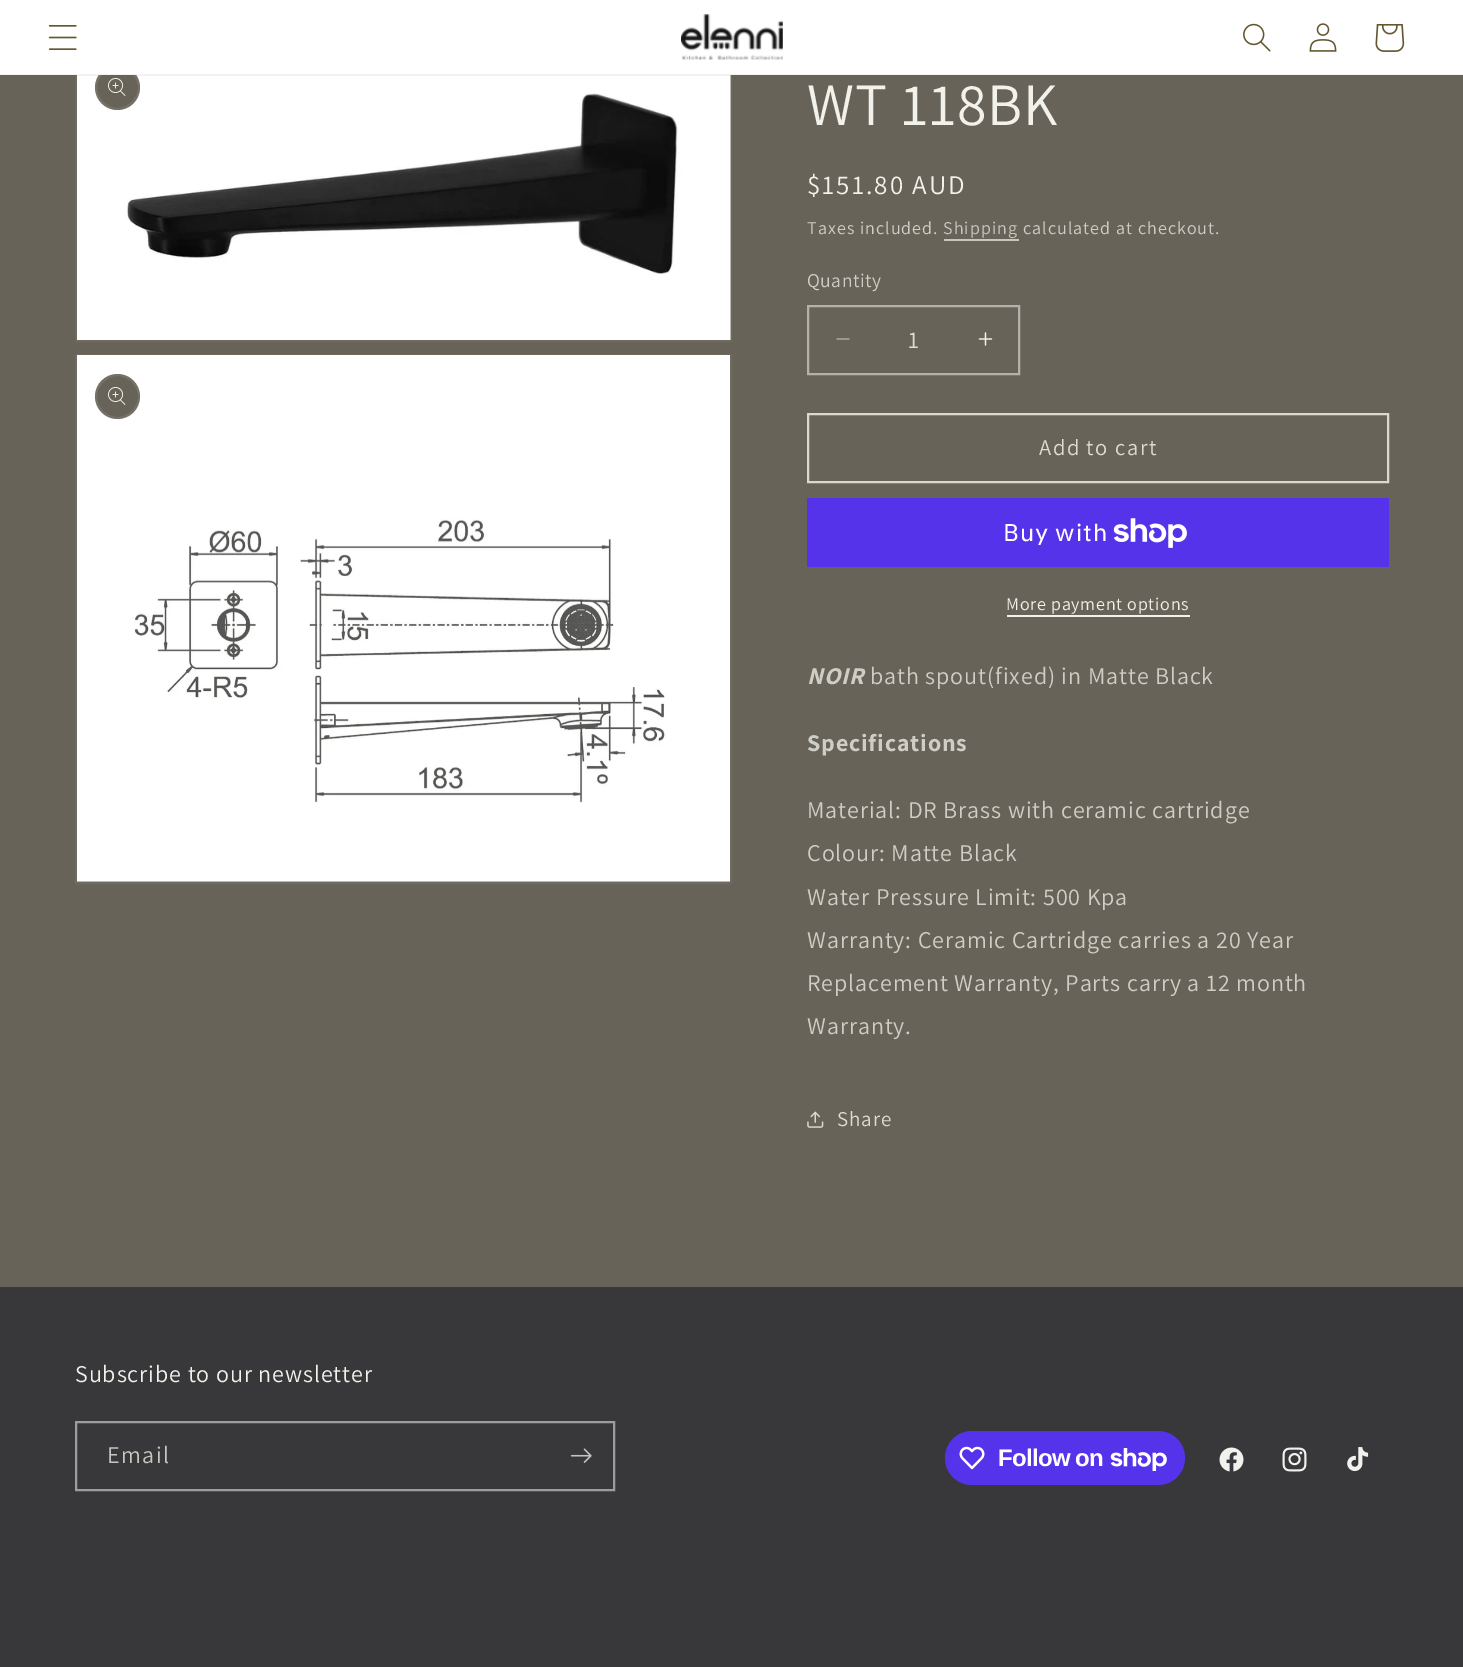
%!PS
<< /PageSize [1463 1667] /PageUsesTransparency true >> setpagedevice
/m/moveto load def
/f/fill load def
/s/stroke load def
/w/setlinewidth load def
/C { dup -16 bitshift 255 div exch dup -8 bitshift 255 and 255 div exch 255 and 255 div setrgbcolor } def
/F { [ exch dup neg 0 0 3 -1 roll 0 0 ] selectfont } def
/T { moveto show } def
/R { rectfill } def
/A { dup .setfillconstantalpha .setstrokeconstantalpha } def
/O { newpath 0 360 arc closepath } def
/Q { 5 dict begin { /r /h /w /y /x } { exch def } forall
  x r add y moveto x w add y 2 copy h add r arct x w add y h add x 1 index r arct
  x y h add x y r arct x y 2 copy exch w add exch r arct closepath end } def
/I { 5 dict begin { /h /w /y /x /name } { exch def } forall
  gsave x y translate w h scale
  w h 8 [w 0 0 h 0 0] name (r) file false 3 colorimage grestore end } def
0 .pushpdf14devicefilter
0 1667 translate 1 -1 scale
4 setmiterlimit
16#676359 C
0 0 1463 1667 R
16#6E6A60 C
2 w
76 46 655 295 rectstroke
(7.rgb) 77 75 654 265 I
16#676359 C
117.5 87.5 22.5 O f
0.1 A
16#F2F1EA C
117.5 87.5 21.5 O s
1 A
16#FFFFFF C
0 0 1463 75 R
0.08 A
16#645631 C
0 74 1463 2 R
1 A
(1.rgb) 48 25 29 25 I
(2.rgb) 681 14 102 46 I
(3.rgb) 1243 23 28 29 I
(4.rgb) 1309 23 28 29 I
(5.rgb) 1375 24 30 28 I
(6.rgb) 108 78 18 18 I
16#6E6A60 C
76 355 655 528 rectstroke
(8.rgb) 77 355 653 527 I
16#676359 C
117.5 396.5 22.5 O f
0.1 A
16#F2F1EA C
117.5 396.5 21.5 O s
1 A
(6.rgb) 108 387 18 18 I
/Assistant-Regular 60 F
807 125 m .9 0 (WT 118BK) ashow
/Assistant-Regular 27 F
807 194 m 2 0 ($151.80 AUD) ashow
/Assistant-Regular 18 F
16#CFCEC6 C
807 234 m 1.05 0 (Taxes included.) ashow
16#C8C6BF C
943 234 m 1.05 0 (Shipping) ashow
944 239 75 2 R
16#CFCEC6 C
1023 234 m 1.05 0 (calculated at checkout.) ashow
/Assistant-Regular 19.5 F
807 287 m .5 0 (Quantity) ashow
(9.rgb) 836 338 14 2 I
(10.rgb) 978 332 15 14 I
16#B3B1A9 C
808 306 211 68 rectstroke
/Assistant-Regular 24 F
16#DDDCD4 C
(1) 908 348 T
16#D9D8D1 C
808 414 580 68 rectstroke
/Assistant-Regular 22.5 F
16#DDDCD4 C
1039 455 m 1.5 0 (Add to cart) ashow
16#5433EB C
807 498 582 69 R
/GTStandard-Regular 24 F
16#FFFFFF C
1003 541 m .9 0 (Buy with) ashow
(11.rgb) 1113 518 74 30 I
/Assistant-Regular 18 F
16#F2F1EA C
1006 610 m .75 0 (More payment options) ashow
1007 615 183 2 R
/Assistant-BoldItalic 24 F
16#CFCEC6 C
807 684 m .9 0 (NOIR) ashow
/Assistant-Regular 24 F
870 684 m .9 0 (bath spout\(fixed\) in Matte Black) ashow
/Assistant-Bold 24 F
807 751 m .9 0 (Specifications) ashow
/Assistant-Regular 24 F
807 818 m .9 0 (Material: DR Brass with ceramic cartridge) ashow
807 861 m .9 0 (Colour: Matte Black) ashow
807 905 m .9 0 (Water Pressure Limit: 500 Kpa) ashow
807 948 m .9 0 (Warranty: Ceramic Cartridge carries a 20 Year) ashow
807 991 m .9 0 (Replacement Warranty, Parts carry a 12 month) ashow
807 1034 m .9 0 (Warranty.) ashow
(12.rgb) 807 1111 17 17 I
/Assistant-Regular 21 F
16#DDDCD4 C
837 1126 m .9 0 (Share) ashow
16#38373A C
0 1287 1463 380 R
/Assistant-Regular 24 F
16#F2F1EA C
75 1382 m .9 0 (Subscribe to our newsletter) ashow
16#9E9D9D C
76 1422 538 68 rectstroke
16#C8C6BF C
107 1463 m 1.5 0 (Email) ashow
(13.rgb) 570 1448 22 15 I
16#5433EB C
945 1431 240 54 27 Q f
(14.rgb) 959 1446 26 24 I
/LiberationSans-Bold 24 F
16#FFFFFF C
998 1466 m -.75 0 (Follow on) ashow
(15.rgb) 1110 1448 57 23 I
(16.rgb) 1219 1447 25 25 I
(17.rgb) 1282 1447 25 25 I
(18.rgb) 1347 1447 22 25 I
.poppdf14devicefilter showpage
